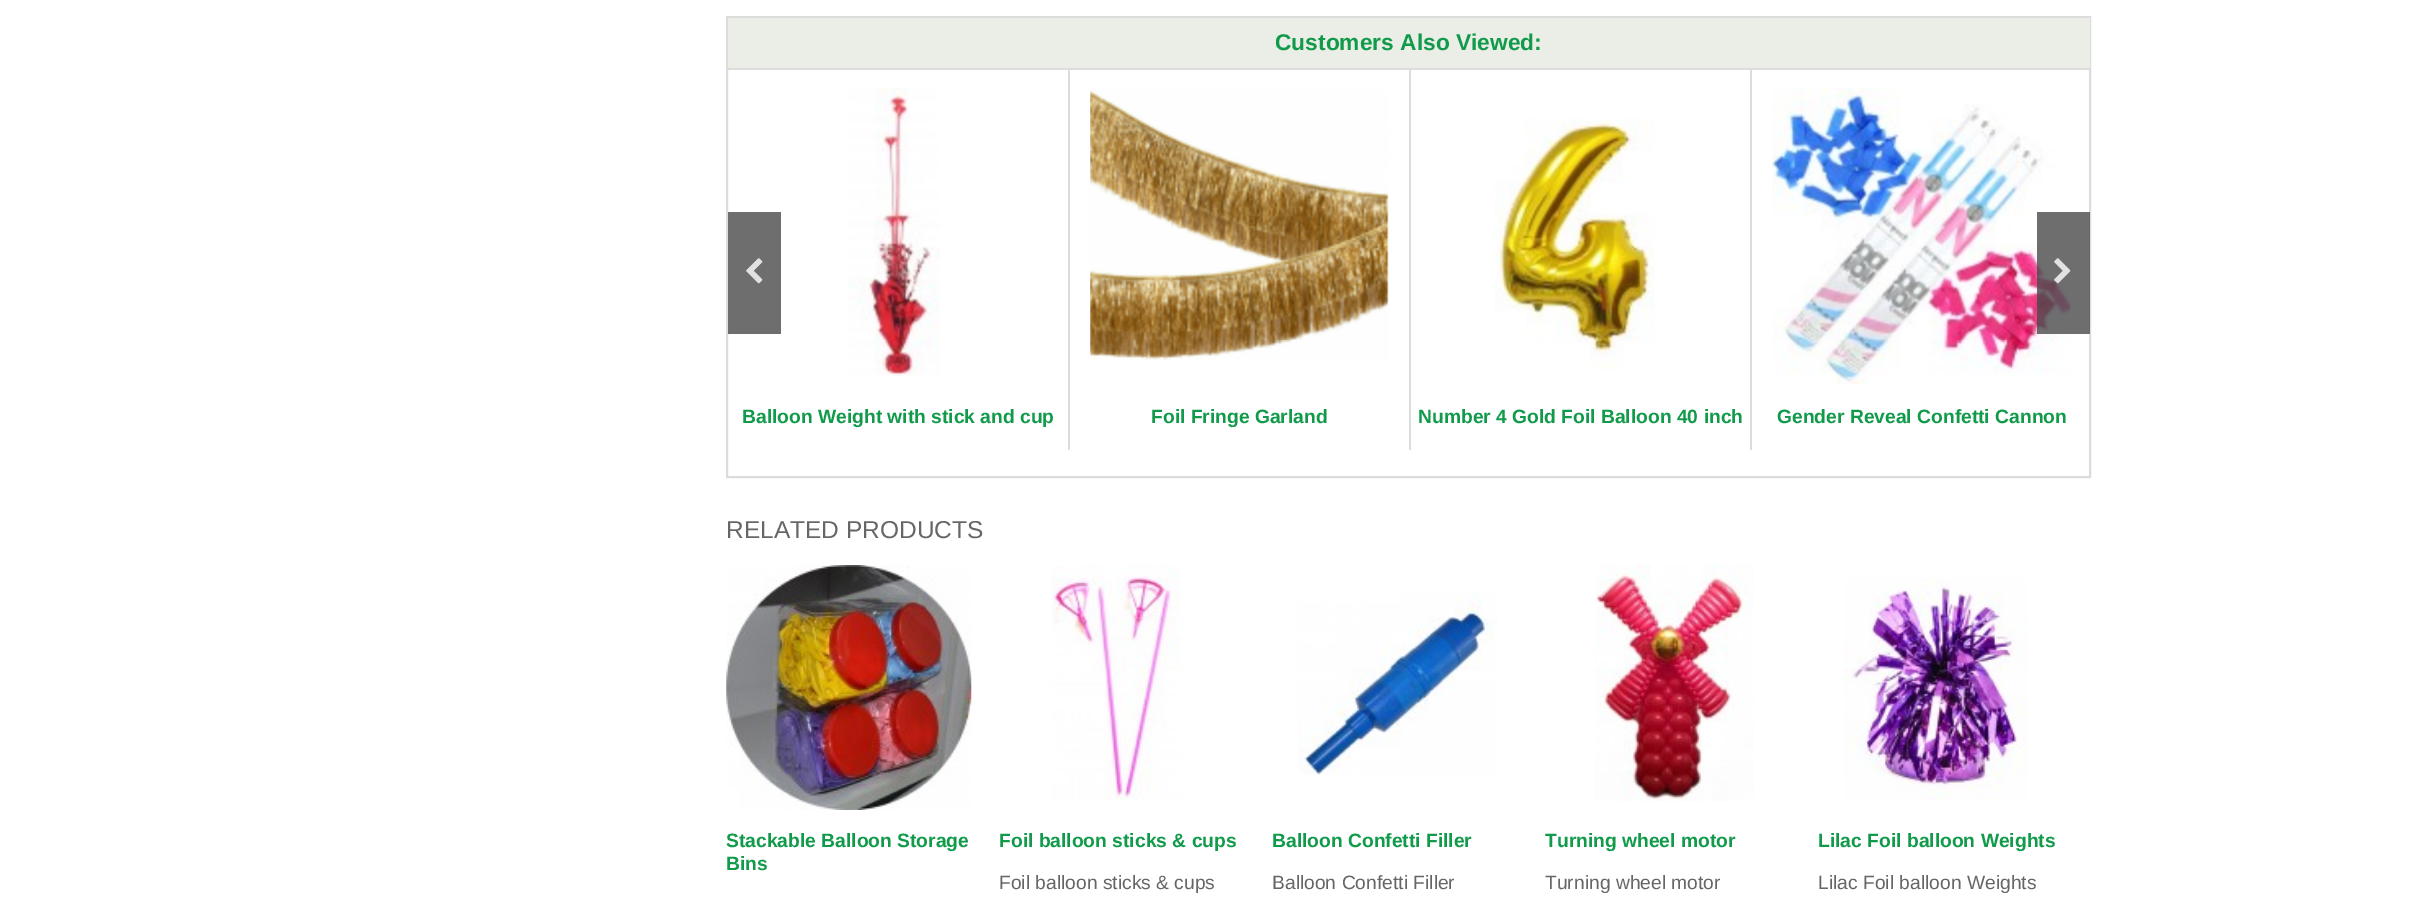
%!PS
<< /PageSize [2432 907] /PageUsesTransparency true >> setpagedevice
/w/setlinewidth load def
/C { dup -16 bitshift 255 div exch dup -8 bitshift 255 and 255 div exch 255 and 255 div setrgbcolor } def
/F { [ exch dup neg 0 0 3 -1 roll 0 0 ] selectfont } def
/T { moveto show } def
/R { rectfill } def
/A { dup .setfillconstantalpha .setstrokeconstantalpha } def
/I { 5 dict begin { /h /w /y /x /name } { exch def } forall
  gsave x y translate w h scale
  w h 8 [w 0 0 h 0 0] name (r) file false 3 colorimage grestore end } def
0 .pushpdf14devicefilter
0 907 translate 1 -1 scale
4 setmiterlimit
16#FFFFFF C
0 0 2432 907 R
16#DCDCDC C
2 w
727 17 1363 460 rectstroke
16#EBEEE7 C
728 18 1362 50 R
16#DCDCDC C
728 68 1362 2 R
/LiberationSans-Bold 22.75 F
16#109A4A C
(Customers Also Viewed:) 1275 50 T
16#6E6E6F C
728 212 53 122 R
(1.rgb) 746 258 17 26 I
(6.rgb) 1772 87 299 298 I
0.8 A
16#4A4A4B C
2037 212 53 122 R
1 A
(2.rgb) 2054 258 17 26 I
16#DCDCDC C
1068 70 2 380 R
(3.rgb) 848 87 92 289 I
/LiberationSans-Bold 19.25 F
16#109A4A C
(Balloon Weight with stick and cup) 742 423 T
16#DCDCDC C
1409 70 2 380 R
(4.rgb) 1090 90 299 270 I
16#109A4A C
(Foil Fringe Garland) 1151 423 T
16#DCDCDC C
1750 70 2 380 R
(5.rgb) 1494 118 161 252 I
16#109A4A C
(Number 4 Gold Foil Balloon 40 inch) 1418 423 T
(Gender Reveal Confetti Cannon) 1777 423 T
/LiberationSans-Regular 24.5 F
16#666666 C
(RELATED PRODUCTS) 726 538 T
(7.rgb) 726 565 246 245 I
/LiberationSans-Bold 19.25 F
16#109A4A C
(Stackable Balloon Storage) 726 847 T
(Bins) 726 870 T
(8.rgb) 1051 565 131 236 I
(Foil balloon sticks & cups) 999 847 T
/LiberationSans-Regular 19.25 F
16#666666 C
(Foil balloon sticks & cups) 999 889 T
(9.rgb) 1298 591 200 184 I
/LiberationSans-Bold 19.25 F
16#109A4A C
(Balloon Confetti Filler) 1272 847 T
/LiberationSans-Regular 19.25 F
16#666666 C
(Balloon Confetti Filler) 1272 889 T
(10.rgb) 1595 565 159 236 I
/LiberationSans-Bold 19.25 F
16#109A4A C
(Turning wheel motor) 1545 847 T
/LiberationSans-Regular 19.25 F
16#666666 C
(Turning wheel motor) 1545 889 T
(11.rgb) 1844 578 184 223 I
/LiberationSans-Bold 19.25 F
16#109A4A C
(Lilac Foil balloon Weights) 1818 847 T
/LiberationSans-Regular 19.25 F
16#666666 C
(Lilac Foil balloon Weights) 1818 889 T
.poppdf14devicefilter showpage
